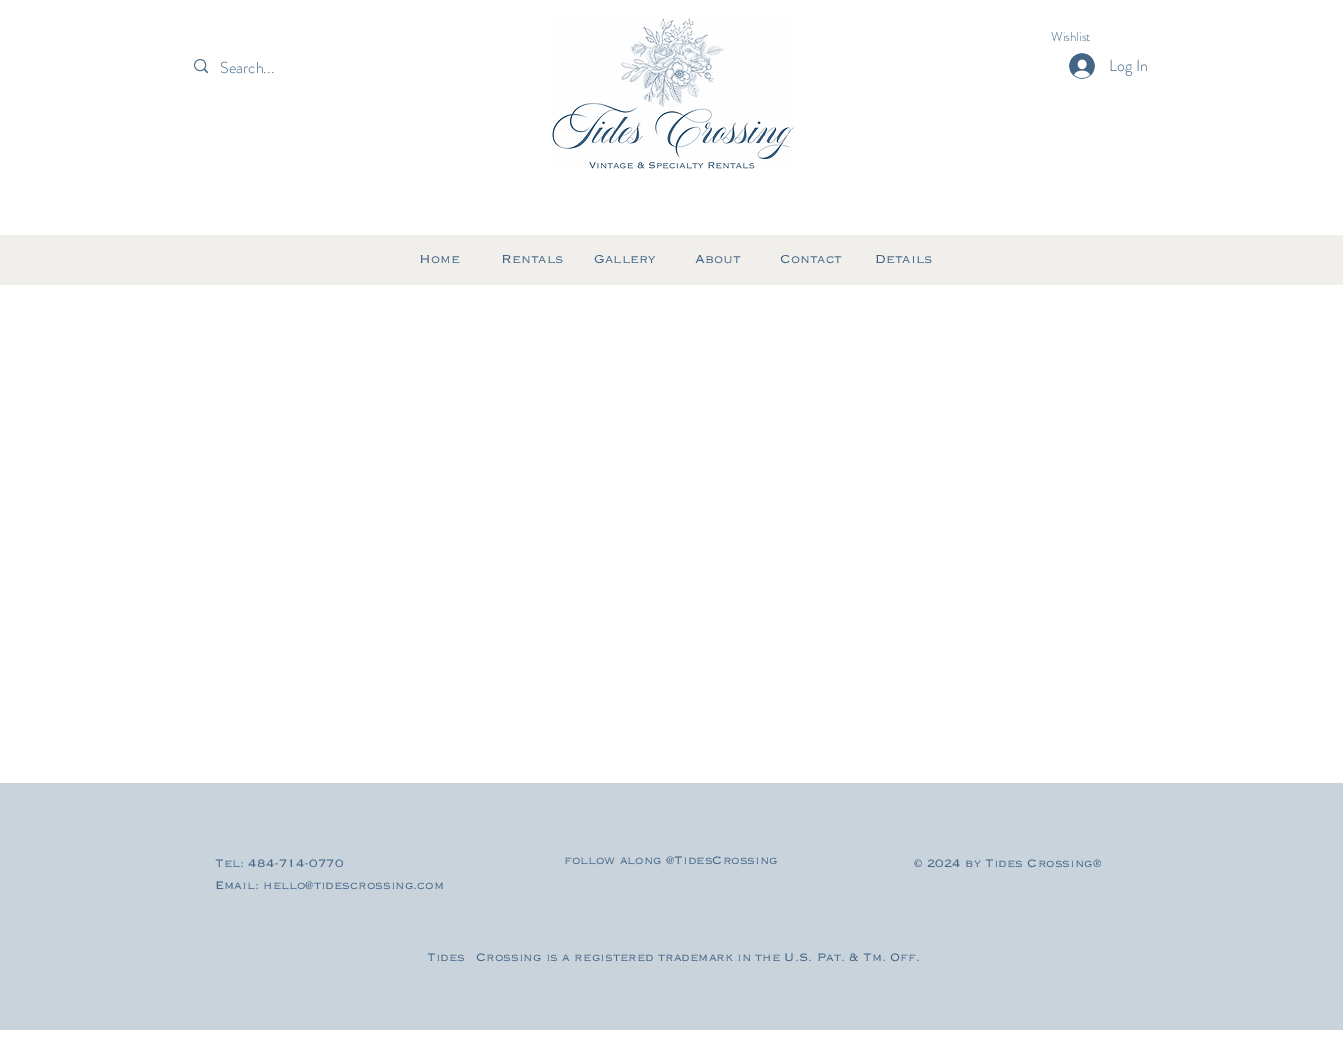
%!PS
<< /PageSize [1343 1056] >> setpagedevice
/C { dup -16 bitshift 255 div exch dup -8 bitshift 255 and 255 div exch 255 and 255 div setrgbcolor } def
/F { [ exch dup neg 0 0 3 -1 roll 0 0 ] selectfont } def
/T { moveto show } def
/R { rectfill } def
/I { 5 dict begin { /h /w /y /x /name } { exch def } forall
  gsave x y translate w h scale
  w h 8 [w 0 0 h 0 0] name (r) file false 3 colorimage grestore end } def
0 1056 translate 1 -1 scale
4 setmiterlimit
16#FFFFFF C
0 0 1343 1056 R
(1.rgb) 552 18 242 151 I
/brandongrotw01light-Light 13 F
16#446686 C
(Wishlist) 1051 41 T
(2.rgb) 194 59 14 14 I
/brandongrotw01light-Light 16 F
(Search...) 220 73 T
(3.rgb) 1069 53 26 26 I
(Log In) 1109 71 T
16#F0EFEB C
0 235 1343 50 R
/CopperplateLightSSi-Light 15 F
16#446686 C
(Home) 419 263 T
(Rentals) 501 263 T
(Gallery) 594 263 T
(About) 695 263 T
(Contact) 780 263 T
(Details) 875 263 T
16#C9D3DC C
0 783 1343 247 R
/CopperplateLightSSi-Light 14 F
16#446686 C
(Tel: 484-714-0770) 215 867 T
(Email: hello@tidescrossing.com) 215 889 T
(follow along @TidesCrossing) 564 864 T
(© 2024 by Tides Crossing®) 914 867 T
(Tides) 427 961 T
(Crossing is a registered trademark in the U.S. Pat. & Tm. Off.) 476 961 T
showpage
